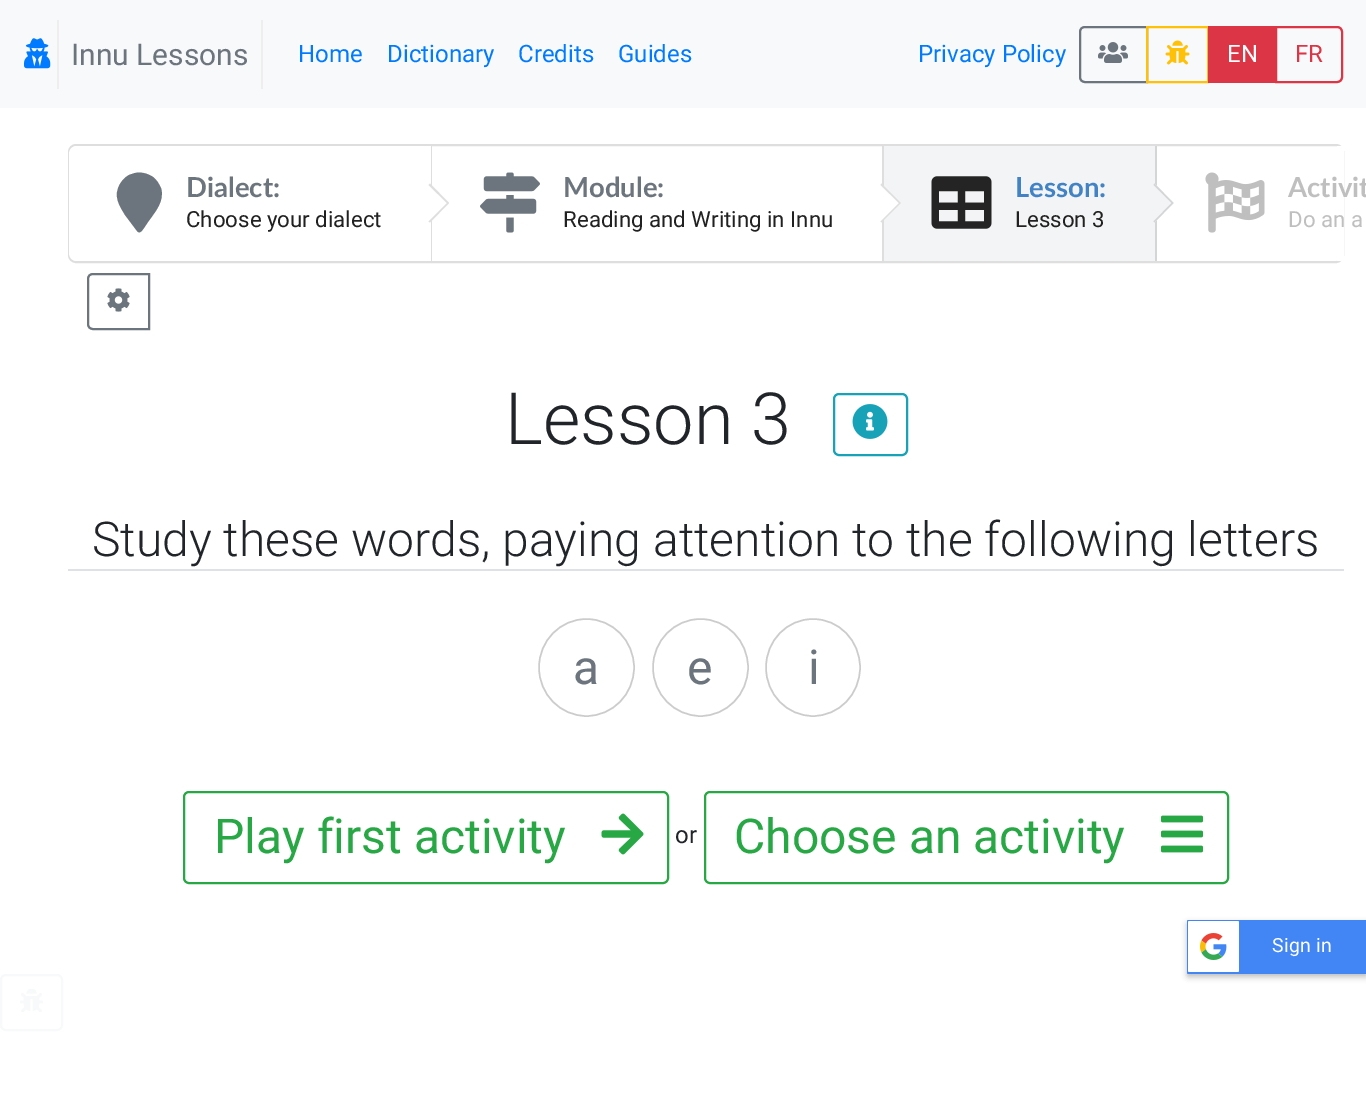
%!PS
<< /PageSize [1366 1117] /PageUsesTransparency true >> setpagedevice
/m/moveto load def
/l/rlineto load def
/c/rcurveto load def
/z/closepath load def
/f/fill load def
/s/stroke load def
/w/setlinewidth load def
/C { dup -16 bitshift 255 div exch dup -8 bitshift 255 and 255 div exch 255 and 255 div setrgbcolor } def
/F { [ exch dup neg 0 0 3 -1 roll 0 0 ] selectfont } def
/T { moveto show } def
/R { rectfill } def
/A { dup .setfillconstantalpha .setstrokeconstantalpha } def
/Q { 5 dict begin { /r /h /w /y /x } { exch def } forall
  x r add y moveto x w add y 2 copy h add r arct x w add y h add x 1 index r arct
  x y h add x y r arct x y 2 copy exch w add exch r arct closepath end } def
/S { 12 dict begin { /a /b /q /h /w /y /x } { exch def } forall gsave /was 0 def
  9 -2 -9 { dup b mul 4 div /e exch def 1 sub .425 mul 2.718 exch exp 1 add a .99 .min exch div /now exch def
    1 1 now sub 1 was sub div sub A /was now def
    w h .min e 2 mul add 0 gt { x e sub y e sub w e 2 mul add h e 2 mul add
      q e add b .6 mul add w h .min 2 div e add .min 0 .max Q fill } if } for grestore end } def
/I { 5 dict begin { /h /w /y /x /name } { exch def } forall
  gsave x y translate w h scale
  w h 8 [w 0 0 h 0 0] name (r) file false 3 colorimage grestore end } def
0 .pushpdf14devicefilter
0 1117 translate 1 -1 scale
4 setmiterlimit
16#FFFFFF C
0 0 1366 1117 R
16#F8F9FA C
0 0 1366 108 R
(1.rgb) 24 38 27 31 I
16#EEEEEE C
261 20 2 69 R
57 20 2 69 R
/Roboto-Regular 30 F
16#6C757D C
(Innu Lessons) 71 65 T
/Roboto-Regular 24 F
16#007BFF C
(Home) 298 62 T
(Dictionary) 387 62 T
(Credits) 518 62 T
(Guides) 618 62 T
(Privacy Policy) 918 62 T
16#6C757D C
2 w
1085 27 m 62 0 l 0 55 l -62 0 l -3 0 -5 -2 -5 -5 c 0 -45 l 0 -3 2 -5 5 -5 c z s
(2.rgb) 1098 42 30 21 I
16#FFC107 C
1147 27 61 55 rectstroke
(3.rgb) 1165 40 25 25 I
16#DC3545 C
1208 26 67 57 R
16#FFFFFF C
(EN) 1227 62 T
16#DC3545 C
1276 27 m 61 0 l 3 0 5 2 5 5 c 0 45 l 0 3 -2 5 -5 5 c -61 0 l z s
(FR) 1295 62 T
16#DEDEDE C
69 145 1274 117 7 Q s
16#FFFFFF C
77 146 m 355 0 l 0 115 l -355 0 l -4.5 0 -8 -3.5 -8 -8 c 0 -99 l 0 -4.5 3.5 -8 8 -8 c z f
16#DEDEDE C
431 146 1 115 R
16#6C757D C
137 231 m -12 -16 l -6 -10 -12 -19 -5 -31 c 3 -5 7 -9 12 -10 c 7 -3 15 -1 21 3 c 4 3 6 7 8 11 c 4 13 -6 24 -13 34 c -4 6 l -1 1 -4 7 -7 3 c z f
/Lato-Bold 27.5 F
(Dialect:) 186 197 T
/Roboto-Regular 22.25 F
16#212121 C
(Choose your dialect) 186 227 T
16#FFFFFF C
410.5 203 m 19.5 -19.5 l 19 19.5 l -19 19.5 l z f
0.15 A
16#222426 C
430 183.5 m 19 19.5 l -2 0 l -18.5 -18 l z 449 203 m -19 19.5 l -1.5 -1 l 18.5 -18.5 l z f
1 A
16#DEDEDE C
882 146 2 115 R
(4.rgb) 480 172 60 61 I
/Lato-Bold 27.5 F
16#6C757D C
(Module:) 563 197 T
/Roboto-Regular 22.25 F
16#212121 C
(Reading and Writing in Innu) 563 227 T
16#F3F4F5 C
884 146 271 115 R
16#FFFFFF C
862 203 m 19.5 -19.5 l 19.5 19.5 l -19.5 19.5 l z f
0.15 A
16#222426 C
881.5 183.5 m 19.5 19.5 l -2 0 l -18.5 -18 l z 901 203 m -19.5 19.5 l -1 -1 l 18.5 -18.5 l z f
1 A
16#D4D5D6 C
1155 146 2 115 R
(5.rgb) 931 176 61 53 I
/Lato-Bold 27.5 F
16#4183C4 C
(Lesson:) 1015 197 T
/Roboto-Regular 22.25 F
16#212121 C
(Lesson 3) 1015 227 T
16#F3F4F5 C
1135 203 m 19.5 -19.5 l 19 19.5 l -19 19.5 l z f
16#D4D5D6 C
1154.5 183.5 m 19 19.5 l -2 0 l -18 -18 l z 1173.5 203 m -19 19.5 l -1 -1 l 18 -18.5 l z f
16#FFFFFF C
1337 146 7 115 R
(6.rgb) 1205 172 60 61 I
/Lato-Bold 27.5 F
16#BFBFBF C
(Activit) 1288 197 T
/Roboto-Regular 22.25 F
(Do an a) 1288 227 T
16#6C757D C
93 274 m 56 0 l 0 55 l -56 0 l -3 0 -5 -2 -5 -5 c 0 -45 l 0 -3 2 -5 5 -5 c z s
(7.rgb) 107 288 23 24 I
/Roboto-Light 72 F
16#212529 C
(Lesson 3) 505 444 T
16#17A2B8 C
834 394 73 61 5 Q s
(8.rgb) 852 404 36 35 I
16#DEE2E6 C
68 569 1276 2 R
/Roboto-Light 48 F
16#212529 C
(Study these words, paying attention to the following letters) 92 556 T
16#CCCCCC C
1.5 w
586.5 619 m 26 0 47.5 21.5 47.5 48.5 c 0 27 -21.5 48.5 -47.5 48.5 c -26 0 -47.5 -21.5 -47.5 -48.5 c 0 -27 21.5 -48.5 47.5 -48.5 c z s
/Roboto-Regular 48 F
16#6C757D C
(a) 573 684 T
16#CCCCCC C
700.5 619 m 26 0 47.5 21.5 47.5 48.5 c 0 27 -21.5 48.5 -47.5 48.5 c -26 0 -47.5 -21.5 -47.5 -48.5 c 0 -27 21.5 -48.5 47.5 -48.5 c z s
16#6C757D C
(e) 687 684 T
16#CCCCCC C
813 619 m 26 0 47 21.5 47 48.5 c 0 27 -21 48.5 -47 48.5 c -26 0 -47 -21.5 -47 -48.5 c 0 -27 21 -48.5 47 -48.5 c z s
16#6C757D C
(i) 808 684 T
16#28A745 C
2 w
184 792 484 91 5 Q s
(Play first activity) 214 853 T
(9.rgb) 601 813 43 42 I
/Roboto-Regular 24 F
16#212529 C
(or) 675 843 T
16#28A745 C
705 792 523 91 5 Q s
/Roboto-Regular 48 F
(Choose an activity) 734 853 T
(10.rgb) 1161 815 42 38 I
16#000000 C
1187 923 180 54 1.5 3 .25 S
16#4285F4 C
1187 920 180 54 1.5 Q f
16#FFFFFF C
1188 921 51 51 1.5 Q f
(11.rgb) 1200 933 27 27 I
/Roboto-Regular 19.5 F
1272 952 m .25 0 (Sign in) ashow
16#F8F9FA C
1 975 61 55 5 Q s
(12.rgb) 20 989 23 23 I
.poppdf14devicefilter showpage
